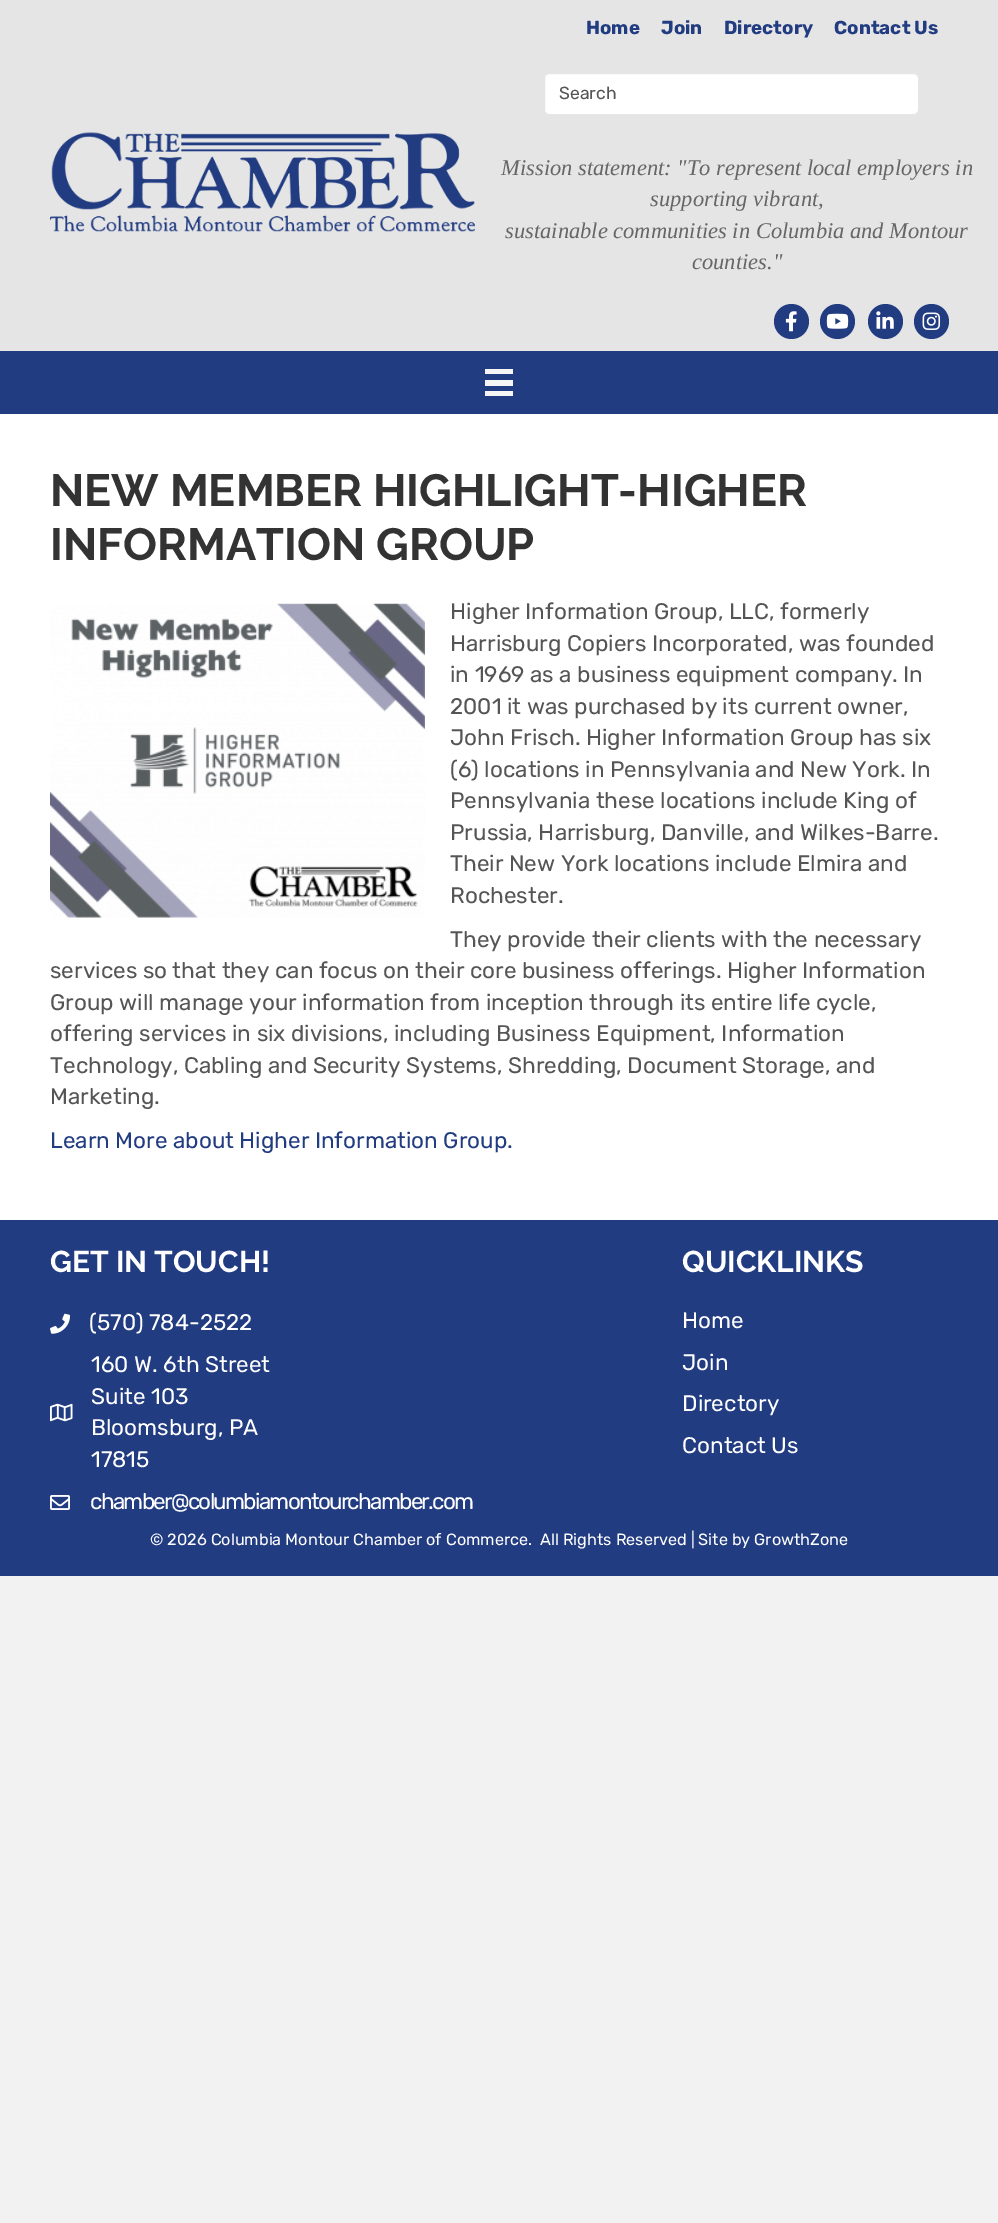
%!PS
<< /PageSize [998 2223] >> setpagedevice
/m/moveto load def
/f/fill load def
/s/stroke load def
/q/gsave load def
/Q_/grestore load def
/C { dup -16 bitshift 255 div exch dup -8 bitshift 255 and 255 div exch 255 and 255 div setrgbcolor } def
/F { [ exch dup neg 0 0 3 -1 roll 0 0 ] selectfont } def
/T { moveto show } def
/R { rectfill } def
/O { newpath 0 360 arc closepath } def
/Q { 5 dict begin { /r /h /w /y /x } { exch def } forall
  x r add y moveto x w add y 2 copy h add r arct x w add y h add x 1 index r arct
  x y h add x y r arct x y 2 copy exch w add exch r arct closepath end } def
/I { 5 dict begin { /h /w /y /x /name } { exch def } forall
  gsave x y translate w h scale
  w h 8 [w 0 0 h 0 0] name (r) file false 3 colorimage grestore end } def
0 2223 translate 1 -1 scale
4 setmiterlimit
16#F2F2F2 C
0 0 998 2223 R
16#E5E5E5 C
0 0 998 351 R
(1.rgb) 50 132 425 100 I
/Rubik-Bold 18.75 F
16#223C82 C
(Home) 586 34 T
(Join) 661 34 T
(Directory) 724 34 T
(Contact Us) 834 34 T
16#FFFFFF C
544.5 73.5 374 41 4.5 Q q f Q_
16#E6E6E6 C
s
/Rubik-Regular 17.5 F
16#555555 C
(Search) 559 99 T
/LiberationSerif-Italic 22.5 F
16#666666 C
(Mission statement: "To represent local employers in) 501 175 T
(supporting vibrant,) 650 206 T
(sustainable communities in Columbia and Montour) 505 238 T
(counties.") 692 269 T
16#223C82 C
791.5 321.5 17.5 O f
(2.rgb) 785 311 12 21 I
837.5 321.5 17.5 O f
(3.rgb) 826 313 23 16 I
885.5 321.5 17.5 O f
(4.rgb) 876 311 18 18 I
931.5 321.5 17.5 O f
(5.rgb) 922 312 19 18 I
0 351 998 63 R
16#F5F5F5 C
485 369 28 5 R
485 380 28 6 R
485 391 28 5 R
16#FFFFFF C
0 414 998 806 R
/Raleway-Thin 45 F
16#333333 C
(NEW MEMBER HIGHLIGHT-HIGHER) 50 506 T
(INFORMATION GROUP) 50 560 T
(6.rgb) 50 603 375 315 I
/Rubik-Regular 22.5 F
16#555555 C
(Higher Information Group, LLC, formerly) 450 619 T
(Harrisburg Copiers Incorporated, was founded) 450 651 T
(in 1969 as a business equipment company. In) 450 682 T
(2001 it was purchased by its current owner,) 450 714 T
(John Frisch. Higher Information Group has six) 450 745 T
(\(6\) locations in Pennsylvania and New York. In) 450 777 T
(Pennsylvania these locations include King of) 450 808 T
(Prussia, Harrisburg, Danville, and Wilkes-Barre.) 450 840 T
(Their New York locations include Elmira and) 450 871 T
(Rochester.) 450 903 T
(They provide their clients with the necessary) 450 947 T
(services so that they can focus on their core business offerings. Higher Information) 50 978 T
(Group will manage your information from inception through its entire life cycle,) 50 1010 T
(offering services in six divisions, including Business Equipment, Information) 50 1041 T
(Technology, Cabling and Security Systems, Shredding, Document Storage, and) 50 1073 T
(Marketing.) 50 1104 T
16#223C82 C
(Learn More about Higher Information Group.) 50 1148 T
0 1220 998 356 R
/Raleway-Thin 30 F
16#FFFFFF C
(GET IN TOUCH!) 50 1272 T
(7.rgb) 50 1313 20 21 I
/Rubik-Regular 22.5 F
(\(570\) 784-2522) 89 1330 T
(8.rgb) 50 1403 23 19 I
(160 W. 6th Street) 91 1372 T
(Suite 103) 91 1404 T
(Bloomsburg, PA) 91 1435 T
(17815) 91 1467 T
(9.rgb) 50 1495 20 15 I
90 1509 m -1.75 0 (chamber@columbiamontourchamber.com) ashow
/Raleway-Thin 30 F
(QUICKLINKS) 682 1272 T
/Rubik-Regular 22.5 F
(Home) 682 1328 T
(Join) 682 1370 T
(Directory) 682 1411 T
(Contact Us) 682 1453 T
/Rubik-Regular 16.25 F
(© 2026 Columbia Montour Chamber of Commerce.) 150 1545 T
(All Rights Reserved | Site by GrowthZone) 540 1545 T
showpage
